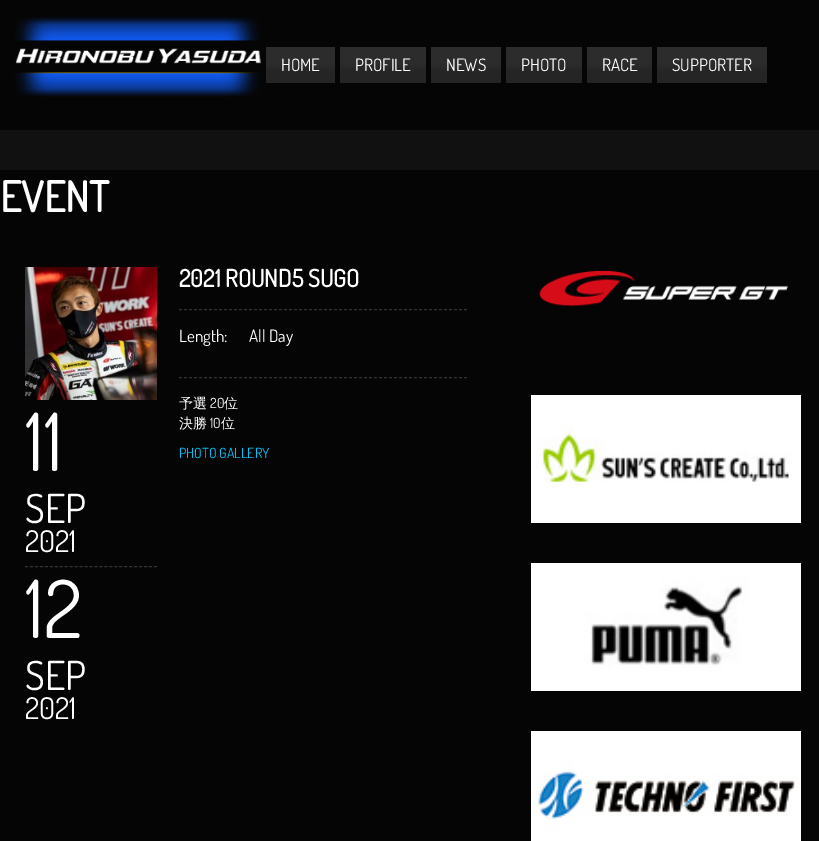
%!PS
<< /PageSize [819 841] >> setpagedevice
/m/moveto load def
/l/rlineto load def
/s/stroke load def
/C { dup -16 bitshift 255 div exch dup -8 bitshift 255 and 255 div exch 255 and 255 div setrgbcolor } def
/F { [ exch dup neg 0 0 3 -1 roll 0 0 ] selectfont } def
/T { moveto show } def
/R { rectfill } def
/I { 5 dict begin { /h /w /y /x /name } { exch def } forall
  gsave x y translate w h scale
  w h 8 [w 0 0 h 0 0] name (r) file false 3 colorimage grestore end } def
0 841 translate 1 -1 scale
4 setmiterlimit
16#111111 C
0 0 819 841 R
16#050505 C
0 0 819 130 R
(1.rgb) 15 15 246 82 I
(2.rgb) 266 47 69 36 I
/Dosis-Regular 17 F
16#FFFFFF C
(HOME) 281 71 T
(3.rgb) 340 47 86 36 I
(PROFILE) 355 71 T
(4.rgb) 431 47 70 36 I
(NEWS) 446 71 T
(5.rgb) 506 47 76 36 I
(PHOTO) 521 71 T
(6.rgb) 587 47 65 36 I
(RACE) 602 71 T
(7.rgb) 657 47 110 36 I
(SUPPORTER) 672 71 T
16#050505 C
0 170 819 671 R
/Dosis-Bold 42 F
16#FFFFFF C
(EVENT) 0 212 T
/Dosis-Bold 24 F
(2021 ROUND5 SUGO) 179 287 T
16#333333 C
[3 2] 0 setdash
179 309.5 m 288 0 l s
179 377.5 m 288 0 l s
/Dosis-Regular 17 F
16#FFFFFF C
(Length:) 179 342 T
(All Day) 249 342 T
/WenQuanYiZenHei-Medium 14 F
(予選) 179 408 T
/Dosis-Regular 14 F
(20) 210 408 T
/WenQuanYiZenHei-Medium 14 F
(位) 224 408 T
(決勝) 179 428 T
/Dosis-Regular 14 F
(10) 210 428 T
/WenQuanYiZenHei-Medium 14 F
(位) 221 428 T
/Dosis-Regular 14 F
16#02C0F8 C
(PHOTO GALLERY) 179 458 T
(8.rgb) 25 267 132 133 I
/Dosis-Regular 80 F
16#FFFFFF C
(11) 25 471 T
/Dosis-Regular 40 F
(SEP) 25 523 T
/Dosis-Regular 30 F
(2021) 25 552 T
16#333333 C
[3 1.96] 0 setdash
25 566.5 m 132 0 l s
/Dosis-Regular 80 F
16#FFFFFF C
(12) 25 638 T
/Dosis-Regular 40 F
(SEP) 25 690 T
/Dosis-Regular 30 F
(2021) 25 719 T
(9.rgb) 539 270 249 37 I
(10.rgb) 531 395 270 128 I
(11.rgb) 531 563 270 128 I
(12.rgb) 531 731 270 110 I
showpage
